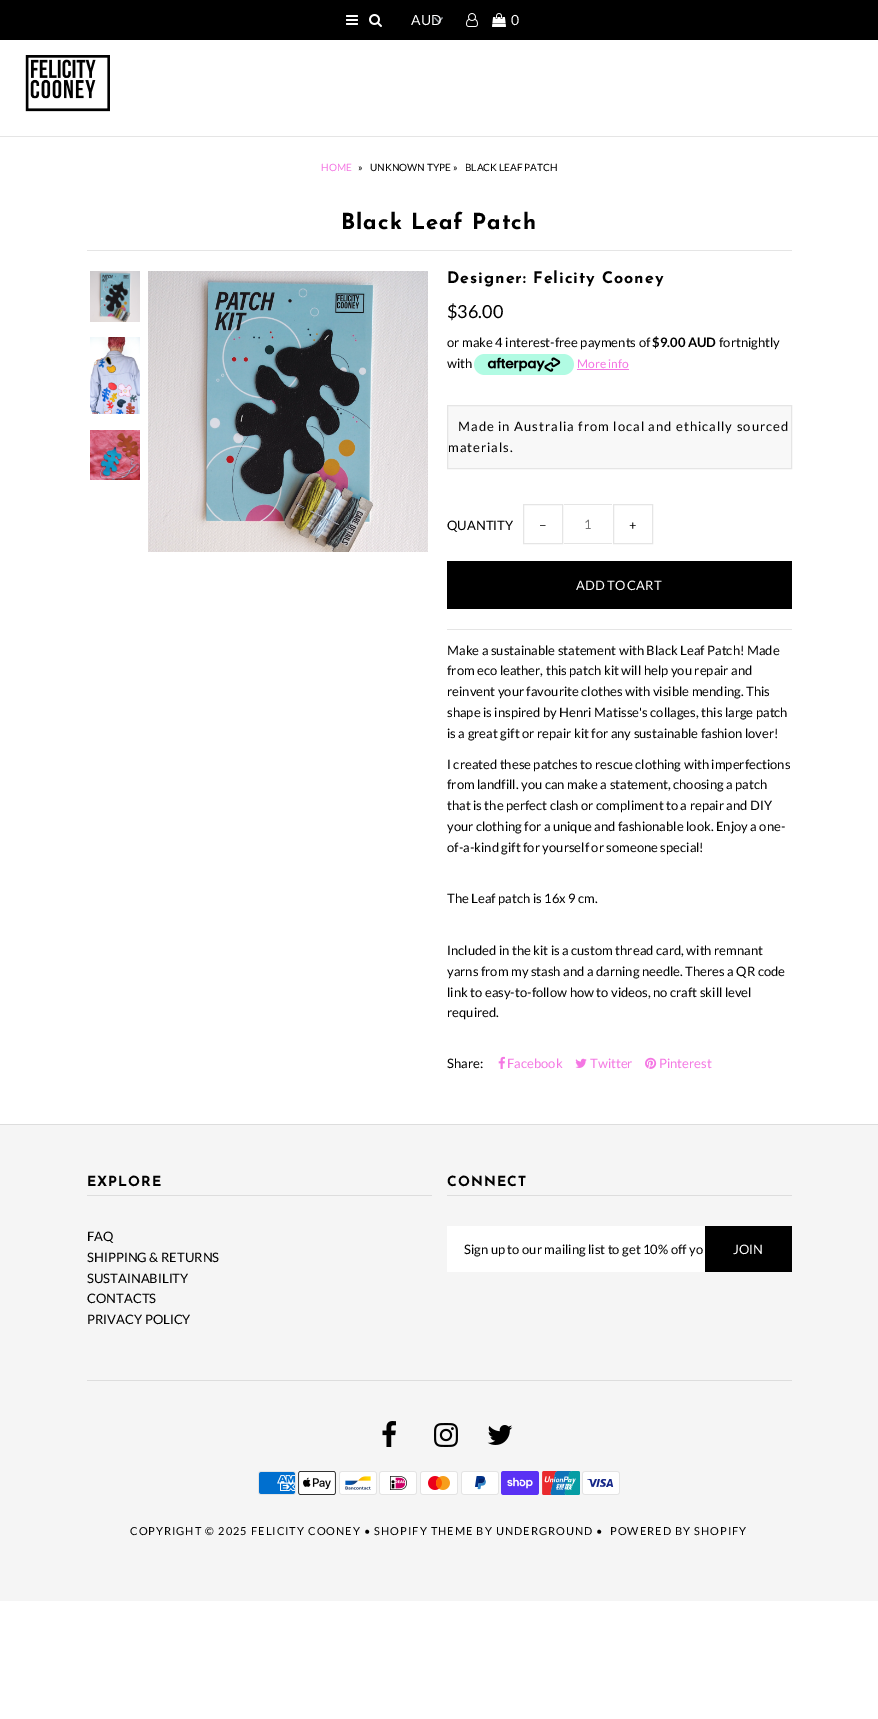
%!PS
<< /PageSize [878 1719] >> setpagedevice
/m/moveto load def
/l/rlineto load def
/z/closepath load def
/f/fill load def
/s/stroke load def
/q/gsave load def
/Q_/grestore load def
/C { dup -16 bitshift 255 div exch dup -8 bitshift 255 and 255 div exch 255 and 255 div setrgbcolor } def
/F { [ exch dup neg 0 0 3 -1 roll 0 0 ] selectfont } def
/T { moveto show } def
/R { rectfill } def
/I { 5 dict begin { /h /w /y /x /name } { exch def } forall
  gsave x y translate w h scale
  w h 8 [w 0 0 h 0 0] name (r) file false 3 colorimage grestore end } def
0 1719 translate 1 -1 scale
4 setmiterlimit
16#FFFFFF C
0 0 878 1719 R
16#E5E5E5 C
0 136 878 1 R
16#000000 C
0 0 878 40 R
(1.rgb) 346 15 12 10 I
(2.rgb) 369 14 13 13 I
(3.rgb) 434 17 9 6 I
/Lato-Regular 14 F
16#FFFFFF C
(AUD) 411 25 T
(4.rgb) 466 13 12 14 I
(5.rgb) 492 13 14 14 I
511 25 m 1 0 (0) ashow
(6.rgb) 25 55 85 57 I
/Lato-Regular 10 F
16#F477E3 C
(HOME) 321 171 T
16#000000 C
(») 358 171 T
(UNKNOWN TYPE ») 370 171 T
(BLACK LEAF PATCH) 465 171 T
16#E5E5E5 C
87 250 705 1 R
/JosefinSans-Bold 22 F
16#000000 C
341 229 m 1 0 (Black Leaf Patch) ashow
(7.rgb) 90 271 50 51 I
(8.rgb) 90 337 50 77 I
(9.rgb) 90 430 50 50 I
(10.rgb) 148 271 280 281 I
/JosefinSans-Bold 16 F
447 283 m 1 0 (Designer: Felicity Cooney) ashow
/Lato-Regular 18 F
($36.00) 447 318 T
/Lato-Regular 13 F
(or make 4 interest-free payments of) 447 347 T
/Lato-Bold 13 F
($9.00 AUD) 652 347 T
/Lato-Regular 13 F
(fortnightly) 719 347 T
(with) 447 368 T
(11.rgb) 474 354 100 21 I
/Lato-Regular 12 F
16#F477E3 C
(More info) 577 368 T
577 369 52 1 R
16#F8F8F8 C
447.5 405.5 m 344 0 l 0 63 l -344 0 l z q f Q_
16#E5E5E5 C
s
/Lato-Regular 13 F
16#000000 C
458 431 m 1 0 (Made in Australia from local and ethically sourced) ashow
448 452 m 1 0 (materials.) ashow
16#E5E5E5 C
447 629 345 1 R
16#000000 C
(QUANTITY) 447 530 T
16#E5E5E5 C
523.5 504.5 39 39 rectstroke
16#000000 C
(−) 539 530 T
16#E5E5E5 C
564 504 48 1 R
564 543 48 1 R
16#777777 C
(1) 584 529 T
16#E5E5E5 C
613.5 504.5 39 39 rectstroke
16#000000 C
(+) 629 530 T
447 561 345 48 R
16#FFFFFF C
(ADD TO CART) 576 590 T
16#000000 C
(Make a sustainable statement with Black Leaf Patch! Made) 447 655 T
(from eco leather, this patch kit will help you repair and) 447 675 T
(reinvent your favourite clothes with visible mending. This) 447 696 T
(shape is inspired by Henri Matisse's collages, this large patch) 447 717 T
(is a great gift or repair kit for any sustainable fashion lover!) 447 738 T
(I created these patches to rescue clothing with imperfections) 447 769 T
(from landfill. you can make a statement, choosing a patch) 447 789 T
(that is the perfect clash or compliment to a repair and DIY) 447 810 T
(your clothing for a unique and fashionable look. Enjoy a one-) 447 831 T
(of-a-kind gift for yourself or someone special!) 447 852 T
(The Leaf patch is 16x 9 cm.) 447 903 T
(Included in the kit is a custom thread card, with remnant) 447 955 T
(yarns from my stash and a darning needle. Theres a QR code) 447 976 T
(link to easy-to-follow how to videos, no craft skill level) 447 997 T
(required.) 447 1017 T
(Share:) 447 1068 T
(12.rgb) 498 1056 7 13 I
16#F477E3 C
(Facebook) 507 1068 T
(13.rgb) 575 1058 12 10 I
(Twitter) 590 1068 T
(14.rgb) 645 1057 12 12 I
(Pinterest) 659 1068 T
16#F5F5F5 C
0 1125 878 476 R
16#DDDDDD C
0 1124 878 1 R
87 1195 345 1 R
/JosefinSans-Bold 14 F
16#000000 C
87 1186 m 1 0 (EXPLORE) ashow
/Lato-Regular 13 F
(FAQ) 87 1241 T
(SHIPPING & RETURNS) 87 1262 T
(SUSTAINABILITY) 87 1283 T
(CONTACTS) 87 1303 T
(PRIVACY POLICY) 87 1324 T
16#DDDDDD C
447 1195 345 1 R
/JosefinSans-Bold 14 F
16#000000 C
447 1186 m 1 0 (CONNECT) ashow
16#FFFFFF C
447 1226 258 46 R
/Lato-Regular 13 F
16#000000 C
(Sign up to our mailing list to get 10% off yo) 464 1254 T
705 1226 87 46 R
16#FFFFFF C
(JOIN) 733 1254 T
16#DDDDDD C
87 1380 705 1 R
(15.rgb) 382 1421 14 26 I
(16.rgb) 434 1423 24 24 I
(17.rgb) 487 1425 26 20 I
(18.rgb) 258 1471 38 24 I
(19.rgb) 298 1471 38 24 I
(20.rgb) 339 1471 38 24 I
(21.rgb) 379 1471 38 24 I
(22.rgb) 420 1471 38 24 I
(23.rgb) 461 1471 38 24 I
(24.rgb) 501 1471 38 24 I
(25.rgb) 542 1471 38 24 I
(26.rgb) 582 1471 38 24 I
/Lato-Regular 11 F
16#000000 C
130 1535 m 1 0 (COPYRIGHT © 2025 FELICITY COONEY • SHOPIFY THEME BY UNDERGROUND •) ashow
610 1535 m 1 0 (POWERED BY SHOPIFY) ashow
showpage
